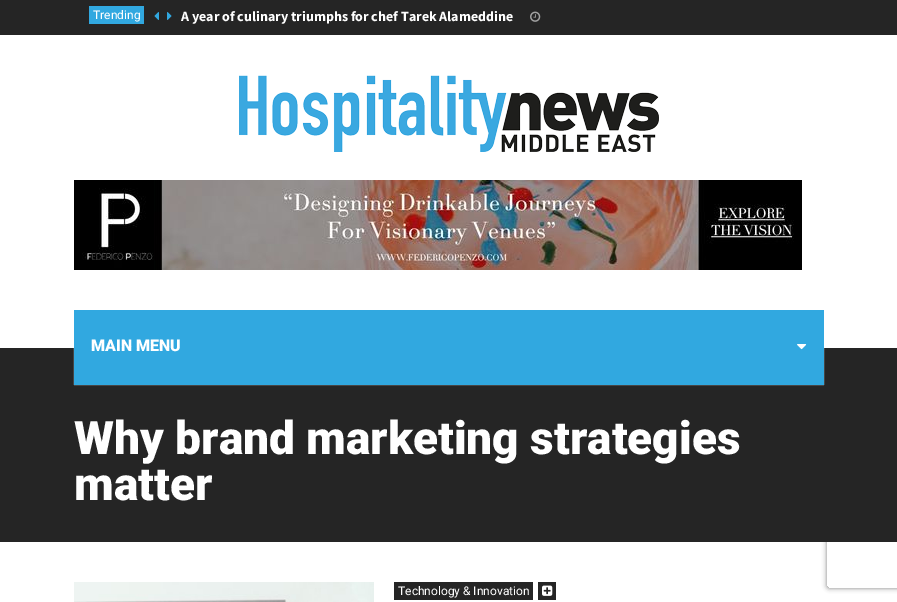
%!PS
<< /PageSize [897 602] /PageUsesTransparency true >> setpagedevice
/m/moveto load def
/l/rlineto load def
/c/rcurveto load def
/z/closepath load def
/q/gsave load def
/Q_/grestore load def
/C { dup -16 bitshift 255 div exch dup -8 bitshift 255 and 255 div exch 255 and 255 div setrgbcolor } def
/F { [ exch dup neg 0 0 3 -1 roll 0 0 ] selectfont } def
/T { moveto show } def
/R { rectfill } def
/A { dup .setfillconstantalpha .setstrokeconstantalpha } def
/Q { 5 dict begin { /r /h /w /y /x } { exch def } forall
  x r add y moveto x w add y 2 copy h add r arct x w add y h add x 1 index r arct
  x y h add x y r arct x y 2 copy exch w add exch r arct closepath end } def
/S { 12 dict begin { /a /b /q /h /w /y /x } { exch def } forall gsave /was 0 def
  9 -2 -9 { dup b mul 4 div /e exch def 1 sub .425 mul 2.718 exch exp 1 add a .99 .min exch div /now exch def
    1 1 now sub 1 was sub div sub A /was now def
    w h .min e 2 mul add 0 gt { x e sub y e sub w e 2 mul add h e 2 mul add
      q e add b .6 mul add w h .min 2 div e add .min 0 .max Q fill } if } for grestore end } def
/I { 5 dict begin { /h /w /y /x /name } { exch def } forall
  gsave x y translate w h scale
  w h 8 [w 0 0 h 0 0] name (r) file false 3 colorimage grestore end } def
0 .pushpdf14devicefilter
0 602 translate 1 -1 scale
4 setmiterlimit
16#FFFFFF C
0 0 897 602 R
16#252525 C
0 0 897 35 R
16#31A8E0 C
89 6 55 18 R
/Roboto-Regular 12 F
16#FFFFFF C
(Trending) 93 19 T
(1.rgb) 154 12 5 8 I
(2.rgb) 167 12 5 8 I
/SourceSansPro-Bold 14 F
(A year of culinary triumphs for chef Tarek Alameddine) 181 21 T
(3.rgb) 530 11 11 11 I
(4.rgb) 239 75 420 77 I
(5.rgb) 74 180 728 90 I
q
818 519 m 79 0 l 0 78 l -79 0 l z 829 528 m 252 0 l 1 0 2 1 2 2 c 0 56 l 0 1 -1 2 -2 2 c -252 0 l -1 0 -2 -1 -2 -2 c 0 -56 l 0 -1 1 -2 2 -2 c z eoclip newpath
16#808080 C
827 528 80 60 2 2.5 1 S
Q_
16#252525 C
0 348 897 194 R
16#464646 C
74 385 750 1 R
16#31A8E0 C
74 310 750 75 R
/Roboto-Black 16 F
16#FFFFFF C
(MAIN MENU) 91 351 T
(6.rgb) 797 344 10 6 I
16#464646 C
824 348 1 37 R
73 348 1 37 R
/Roboto-Black 46 F
16#FFFFFF C
(Why brand marketing strategies) 74 454 T
(matter) 74 500 T
(7.rgb) 74 582 300 20 I
16#252525 C
394 582 139 18 R
/Roboto-Regular 12 F
16#FFFFFF C
(Technology & Innovation) 398 595 T
16#252525 C
538 582 18 18 R
(8.rgb) 542 585 11 11 I
.poppdf14devicefilter showpage
